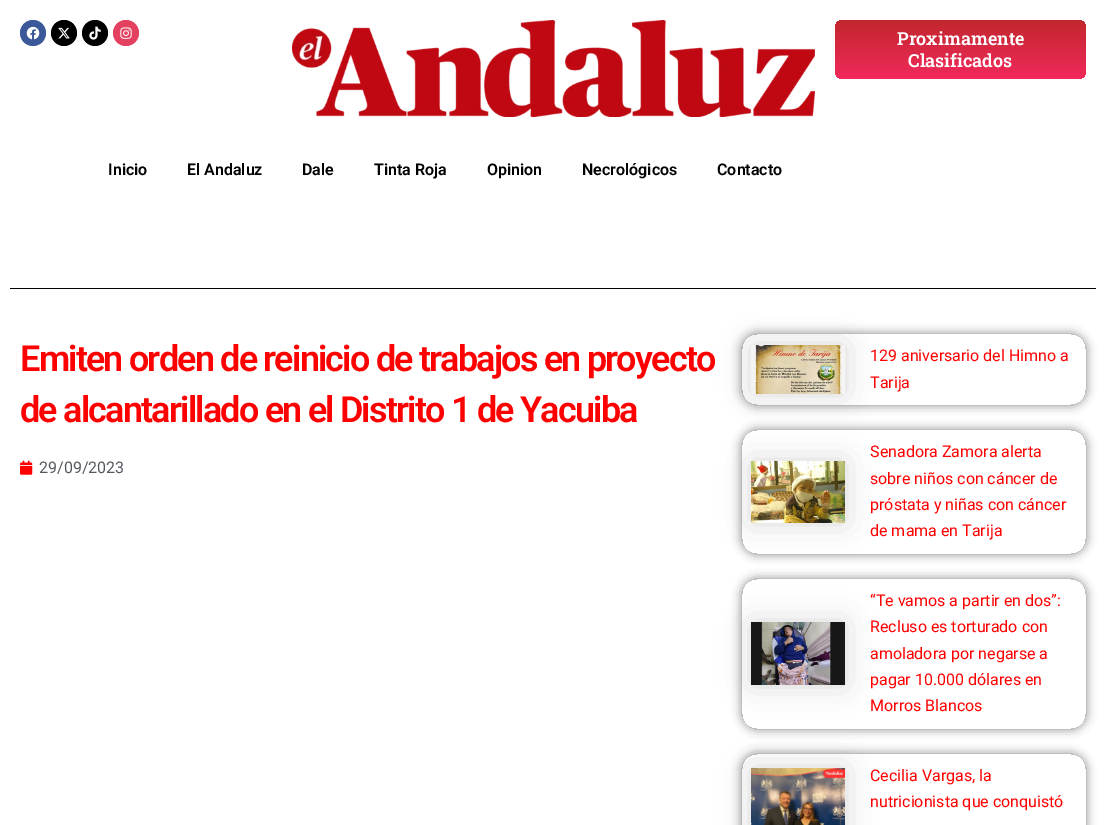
%!PS
<< /PageSize [1106 825] /PageUsesTransparency true >> setpagedevice
/m/moveto load def
/l/rlineto load def
/c/rcurveto load def
/z/closepath load def
/f/fill load def
/q/gsave load def
/Q_/grestore load def
/C { dup -16 bitshift 255 div exch dup -8 bitshift 255 and 255 div exch 255 and 255 div setrgbcolor } def
/F { [ exch dup neg 0 0 3 -1 roll 0 0 ] selectfont } def
/T { moveto show } def
/R { rectfill } def
/A { dup .setfillconstantalpha .setstrokeconstantalpha } def
/O { newpath 0 360 arc closepath } def
/Q { 5 dict begin { /r /h /w /y /x } { exch def } forall
  x r add y moveto x w add y 2 copy h add r arct x w add y h add x 1 index r arct
  x y h add x y r arct x y 2 copy exch w add exch r arct closepath end } def
/S { 12 dict begin { /a /b /q /h /w /y /x } { exch def } forall gsave /was 0 def
  9 -2 -9 { dup b mul 4 div /e exch def 1 sub .425 mul 2.718 exch exp 1 add a .99 .min exch div /now exch def
    1 1 now sub 1 was sub div sub A /was now def
    w h .min e 2 mul add 0 gt { x e sub y e sub w e 2 mul add h e 2 mul add
      q e add b .6 mul add w h .min 2 div e add .min 0 .max Q fill } if } for grestore end } def
/I { 5 dict begin { /h /w /y /x /name } { exch def } forall
  gsave x y translate w h scale
  w h 8 [w 0 0 h 0 0] name (r) file false 3 colorimage grestore end } def
0 .pushpdf14devicefilter
0 825 translate 1 -1 scale
4 setmiterlimit
16#FFFFFF C
0 0 1106 825 R
16#3B5998 C
33 33 13 O f
(1.rgb) 26 26 14 14 I
16#000000 C
64 33 13 O f
(2.rgb) 58 27 12 12 I
95 33 13 O f
(3.rgb) 89 26 12 14 I
16#E4405F C
126 33 13 O f
(4.rgb) 120 27 12 12 I
(5.rgb) 292 20 523 97 I
q 835 20 251 59 8 Q clip newpath
<< /ShadingType 2 /ColorSpace /DeviceRGB /Coords [961 20 961 79] /Extend [true true] /Function << /FunctionType 2 /Domain [0 1] /C0 [.757 .153 .176] /C1 [.949 .161 .357] /N 1 >> >> shfill Q_
/RobotoSlab-SemiBold 18 F
16#FFFFFF C
(Proximamente) 897 45 T
(Clasificados) 908 67 T
/Roboto-SemiBold 16 F
16#000000 C
(Inicio) 108 175 T
(El Andaluz) 187 175 T
(Dale) 302 175 T
(Tinta Roja) 374 175 T
(Opinion) 487 175 T
(Necrológicos) 582 175 T
(Contacto) 717 175 T
10 288 1086 1 R
/Roboto-SemiBold 36 F
16#FF0000 C
20 371 m -1.8 0 (Emiten orden de reinicio de trabajos en proyecto) ashow
20 422 m -1.8 0 (de alcantarillado en el Distrito 1 de Yacuiba) ashow
(6.rgb) 20 460 13 15 I
/Roboto-Regular 16 F
16#54595F C
(29/09/2023) 39 473 T
q
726 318 m 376 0 l 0 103 l -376 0 l z 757 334 m 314 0 l 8.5 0 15 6.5 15 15 c 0 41 l 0 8.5 -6.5 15 -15 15 c -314 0 l -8.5 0 -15 -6.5 -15 -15 c 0 -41 l 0 -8.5 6.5 -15 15 -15 c z eoclip newpath
16#000000 C
742 334 344 71 15 5 .5 S
Q_
16#000000 C
751 345 94 49 0 15 .15 S
(7.rgb) 751 345 94 49 I
16#FF0000 C
(129 aniversario del Himno a) 870 361 T
(Tarija) 870 388 T
q
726 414 m 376 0 l 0 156 l -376 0 l z 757 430 m 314 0 l 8.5 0 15 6.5 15 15 c 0 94 l 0 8.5 -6.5 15 -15 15 c -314 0 l -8.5 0 -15 -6.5 -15 -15 c 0 -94 l 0 -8.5 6.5 -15 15 -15 c z eoclip newpath
16#000000 C
742 430 344 124 15 5 .5 S
Q_
16#000000 C
751 461 94 62 0 15 .15 S
(8.rgb) 751 461 94 62 I
16#FF0000 C
(Senadora Zamora alerta) 870 457 T
(sobre niños con cáncer de) 870 484 T
(próstata y niñas con cáncer) 870 510 T
(de mama en Tarija) 870 536 T
q
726 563 m 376 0 l 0 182 l -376 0 l z 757 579 m 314 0 l 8.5 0 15 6.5 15 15 c 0 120 l 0 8.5 -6.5 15 -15 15 c -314 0 l -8.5 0 -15 -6.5 -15 -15 c 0 -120 l 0 -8.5 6.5 -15 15 -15 c z eoclip newpath
16#000000 C
742 579 344 150 15 5 .5 S
Q_
16#000000 C
751 622 94 63 0 15 .15 S
(9.rgb) 751 622 94 63 I
16#FF0000 C
(“Te vamos a partir en dos”:) 870 606 T
(Recluso es torturado con) 870 632 T
(amoladora por negarse a) 870 659 T
(pagar 10.000 dólares en) 870 685 T
(Morros Blancos) 870 711 T
q
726 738 m 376 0 l 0 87 l -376 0 l z 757 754 m 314 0 l 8.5 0 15 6.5 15 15 c 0 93 l 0 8.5 -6.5 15 -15 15 c -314 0 l -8.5 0 -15 -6.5 -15 -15 c 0 -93 l 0 -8.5 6.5 -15 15 -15 c z eoclip newpath
16#000000 C
742 754 344 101 15 5 .5 S
Q_
16#000000 C
751 768 94 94 0 15 .15 S
(10.rgb) 751 768 94 57 I
16#FF0000 C
(Cecilia Vargas, la) 870 781 T
(nutricionista que conquistó) 870 807 T
.poppdf14devicefilter showpage
